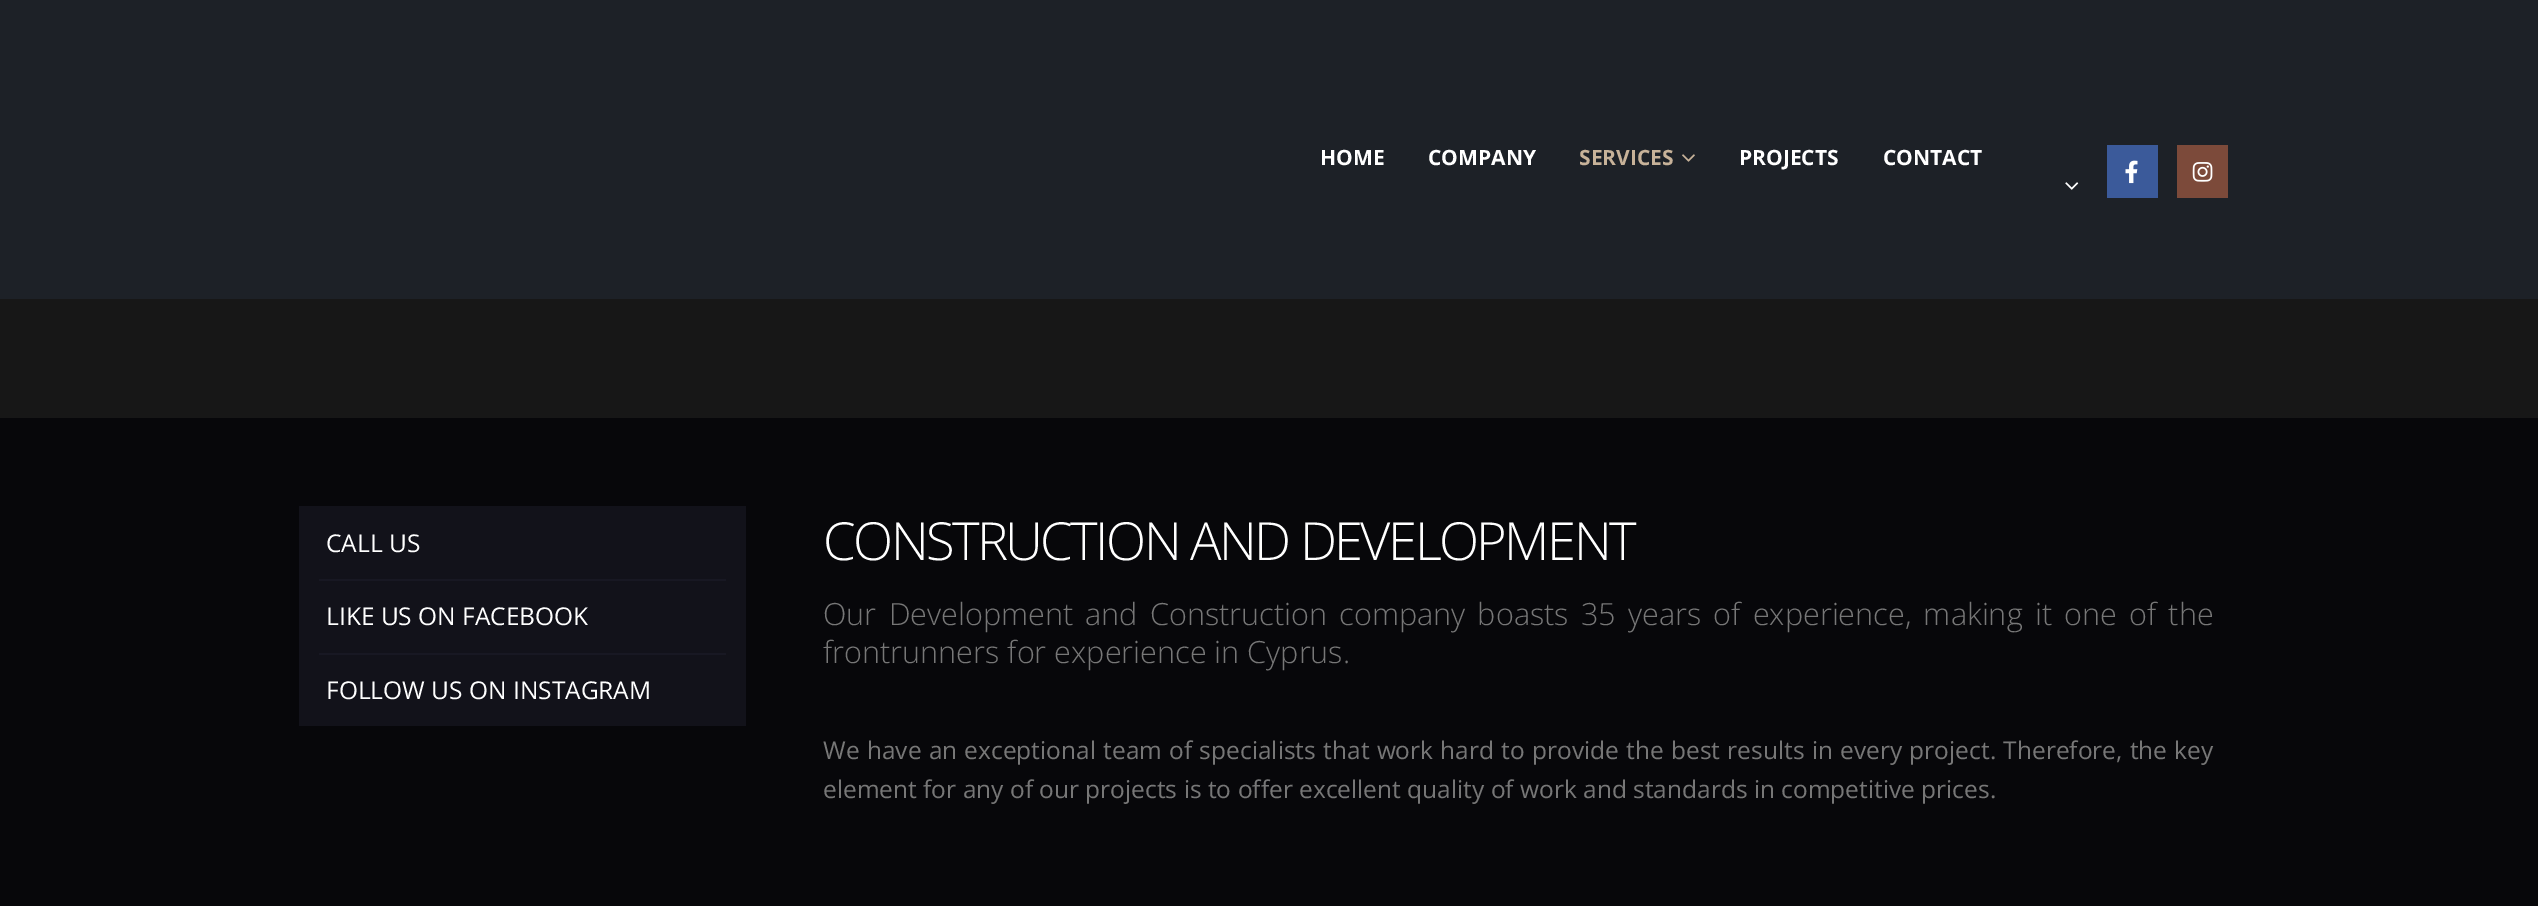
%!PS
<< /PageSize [2538 906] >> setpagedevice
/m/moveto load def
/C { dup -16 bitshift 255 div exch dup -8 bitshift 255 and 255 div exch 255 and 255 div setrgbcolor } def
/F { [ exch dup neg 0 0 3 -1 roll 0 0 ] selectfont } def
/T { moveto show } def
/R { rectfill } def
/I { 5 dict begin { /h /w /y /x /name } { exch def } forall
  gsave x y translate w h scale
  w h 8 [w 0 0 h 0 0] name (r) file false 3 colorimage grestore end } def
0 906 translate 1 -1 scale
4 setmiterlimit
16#1D2127 C
0 0 2538 906 R
/OpenSans-Bold 21 F
16#FFFFFF C
(HOME) 1320 165 T
(COMPANY) 1428 165 T
16#C7B299 C
(SERVICES) 1579 165 T
(1.rgb) 1682 154 13 8 I
16#FFFFFF C
(PROJECTS) 1739 165 T
(CONTACT) 1883 165 T
(2.rgb) 2065 182 14 8 I
16#3B5A9A C
2107 145 51 53 R
(3.rgb) 2125 160 13 24 I
16#7C4A3A C
2177 145 51 53 R
(4.rgb) 2192 162 21 20 I
16#171717 C
0 299 2538 119 R
16#07070A C
0 418 2538 488 R
16#12121A C
299 506 447 220 R
/OpenSans-Regular 24.5 F
16#FFFFFF C
(CALL US) 326 552 T
16#181823 C
319 579 407 2 R
16#FFFFFF C
(LIKE US ON FACEBOOK) 326 625 T
16#181823 C
319 653 407 2 R
16#FFFFFF C
(FOLLOW US ON INSTAGRAM) 326 699 T
/OpenSans-Light 52.5 F
823 560 m -2.6 0 (CONSTRUCTION AND DEVELOPMENT) ashow
/OpenSans-Light 30.6 F
16#777777 C
823 625 m 4.25 0 32 (Our Development and Construction company boasts 35 years of experience, making it one of the) widthshow
(frontrunners for experience in Cyprus.) 823 663 T
/OpenSans-Regular 24.5 F
823 759 m .9 0 32 (We have an exceptional team of specialists that work hard to provide the best results in every project. Therefore, the key) widthshow
(element for any of our projects is to offer excellent quality of work and standards in competitive prices.) 823 798 T
showpage
